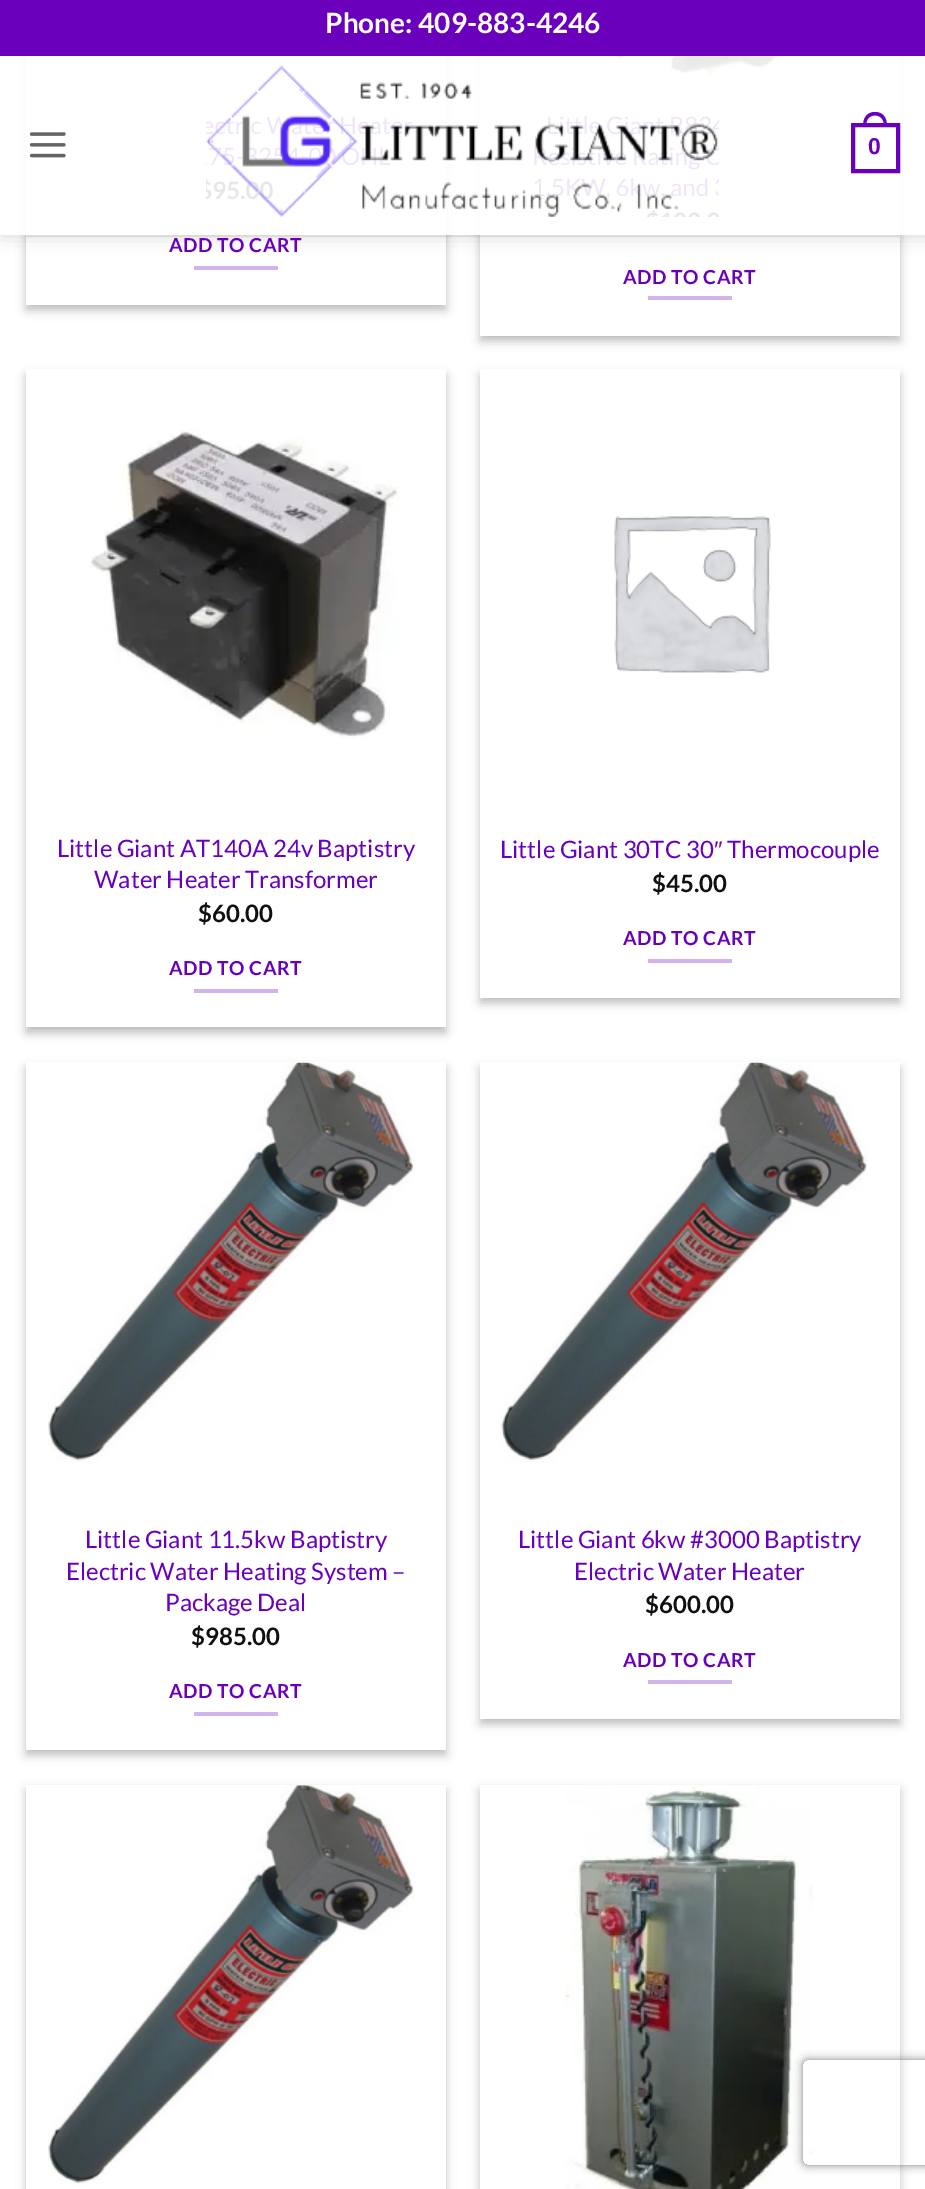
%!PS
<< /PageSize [925 2189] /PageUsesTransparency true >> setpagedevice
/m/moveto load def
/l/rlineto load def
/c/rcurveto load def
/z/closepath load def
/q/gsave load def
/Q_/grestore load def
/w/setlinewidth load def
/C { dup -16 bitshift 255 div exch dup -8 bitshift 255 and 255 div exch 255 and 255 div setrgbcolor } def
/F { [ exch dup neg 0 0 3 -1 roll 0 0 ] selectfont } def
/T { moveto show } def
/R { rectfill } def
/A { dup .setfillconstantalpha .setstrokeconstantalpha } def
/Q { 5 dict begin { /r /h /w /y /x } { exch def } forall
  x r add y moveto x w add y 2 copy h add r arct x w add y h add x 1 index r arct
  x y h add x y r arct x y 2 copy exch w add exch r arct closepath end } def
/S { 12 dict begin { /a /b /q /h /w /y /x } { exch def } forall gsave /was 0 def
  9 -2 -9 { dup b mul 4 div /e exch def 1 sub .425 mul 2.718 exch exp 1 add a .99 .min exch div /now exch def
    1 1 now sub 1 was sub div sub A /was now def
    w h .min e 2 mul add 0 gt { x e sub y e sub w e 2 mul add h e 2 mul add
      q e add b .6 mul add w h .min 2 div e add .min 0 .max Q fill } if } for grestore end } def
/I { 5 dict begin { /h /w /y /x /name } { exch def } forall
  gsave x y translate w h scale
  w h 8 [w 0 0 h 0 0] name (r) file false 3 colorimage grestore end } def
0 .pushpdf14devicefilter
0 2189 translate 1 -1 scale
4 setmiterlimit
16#FFFFFF C
0 0 925 2189 R
16#000000 C
26 -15 420 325 0 5 .23 S
33 -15 406 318 0 5 .16 S
16#FFFFFF C
26 56 420 249 R
16#000000 C
480 -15 420 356 0 5 .23 S
487 -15 406 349 0 5 .16 S
16#FFFFFF C
480 56 420 280 R
(3.rgb) 545 56 283 26 I
q
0 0 m 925 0 l 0 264 l -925 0 l z 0 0 m 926 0 l 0 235 l -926 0 l z eoclip newpath
16#000000 C
2 2 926 234 0 9 .15 S
Q_
16#6A00BC C
0 0 925 56 R
/Lato-Bold 28 F
16#FFFFFF C
(Phone: 409-883-4246) 325 33 T
0.9 A
0 56 925 179 R
1 A
(1.rgb) 29 132 37 26 I
(2.rgb) 206 65 513 152 I
16#6A00BC C
4 w
853 125 45 46 rectstroke
875 112 m 8.5 0 12 6.5 12 14 c -24 0 l 0 -7.5 3.5 -14 12 -14 c z 875 115.5 m 6.5 0 9 5 9 10.5 c -18 0 l 0 -5.5 2.5 -10.5 9 -10.5 c z eofill
/LiberationSans-Bold 23 F
(0) 868 154 T
0.1 A
16#4A4A4A C
26 235 874 2 R
/Lato-Bold 19.25 F
1 A
16#6A00BC C
169 252 m .5 0 (ADD TO CART) ashow
16#D2B3EB C
194 266 84 4 R
16#6A00BC C
623 284 m .5 0 (ADD TO CART) ashow
16#D2B3EB C
648 296 84 4 R
16#000000 C
26 375 420 658 0 5 .23 S
33 382 406 644 0 5 .16 S
16#FFFFFF C
26 369 420 658 R
(4.rgb) 90 428 309 311 I
/Lato-Regular 24 F
16#6A00BC C
(Little Giant AT140A 24v Baptistry) 57 857 T
(Water Heater Transformer) 94 888 T
/Lato-Bold 24 F
16#111111 C
($60.00) 198 922 T
/Lato-Bold 19.25 F
16#6A00BC C
169 975 m .5 0 (ADD TO CART) ashow
16#D2B3EB C
194 989 84 4 R
16#000000 C
480 375 420 628 0 5 .23 S
487 382 406 614 0 5 .16 S
16#FFFFFF C
480 369 420 629 R
(5.rgb) 614 516 157 157 I
/Lato-Regular 24 F
16#6A00BC C
(Little Giant 30TC 30) 500 858 T
/LiberationSans-Regular 24 F
(″) 714 858 T
/Lato-Regular 24 F
(Thermocouple) 727 858 T
/Lato-Bold 24 F
16#111111 C
($45.00) 652 892 T
/Lato-Bold 19.25 F
16#6A00BC C
623 945 m .5 0 (ADD TO CART) ashow
16#D2B3EB C
648 959 84 4 R
16#000000 C
26 1068 420 687 0 5 .23 S
33 1075 406 673 0 5 .16 S
16#FFFFFF C
26 1062 420 688 R
(6.rgb) 48 1062 367 401 I
/Lato-Regular 24 F
16#6A00BC C
(Little Giant 11.5kw Baptistry) 85 1548 T
(Electric Water Heating System –) 66 1580 T
(Package Deal) 165 1611 T
/Lato-Bold 24 F
16#111111 C
($985.00) 191 1645 T
/Lato-Bold 19.25 F
16#6A00BC C
169 1698 m .5 0 (ADD TO CART) ashow
16#D2B3EB C
194 1712 84 4 R
16#000000 C
480 1068 420 656 0 5 .23 S
487 1075 406 642 0 5 .16 S
16#FFFFFF C
480 1062 420 657 R
(7.rgb) 501 1062 367 401 I
/Lato-Regular 24 F
16#6A00BC C
(Little Giant 6kw #3000 Baptistry) 518 1548 T
(Electric Water Heater) 574 1580 T
/Lato-Bold 24 F
16#111111 C
($600.00) 645 1613 T
/Lato-Bold 19.25 F
16#6A00BC C
623 1667 m .5 0 (ADD TO CART) ashow
16#D2B3EB C
648 1680 84 4 R
16#000000 C
26 1790 420 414 0 5 .23 S
16#FFFFFF C
26 1785 420 404 R
(8.rgb) 48 1785 367 400 I
16#000000 C
480 1790 420 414 0 5 .23 S
16#FFFFFF C
480 1785 420 404 R
(9.rgb) 565 1785 248 404 I
q
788 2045 m 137 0 l 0 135 l -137 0 l z 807 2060 m 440 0 l 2 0 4 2 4 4 c 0 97 l 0 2 -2 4 -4 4 c -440 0 l -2 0 -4 -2 -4 -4 c 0 -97 l 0 -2 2 -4 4 -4 c z eoclip newpath
16#808080 C
803 2060 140 105 4 4.5 1 S
Q_
.poppdf14devicefilter showpage
